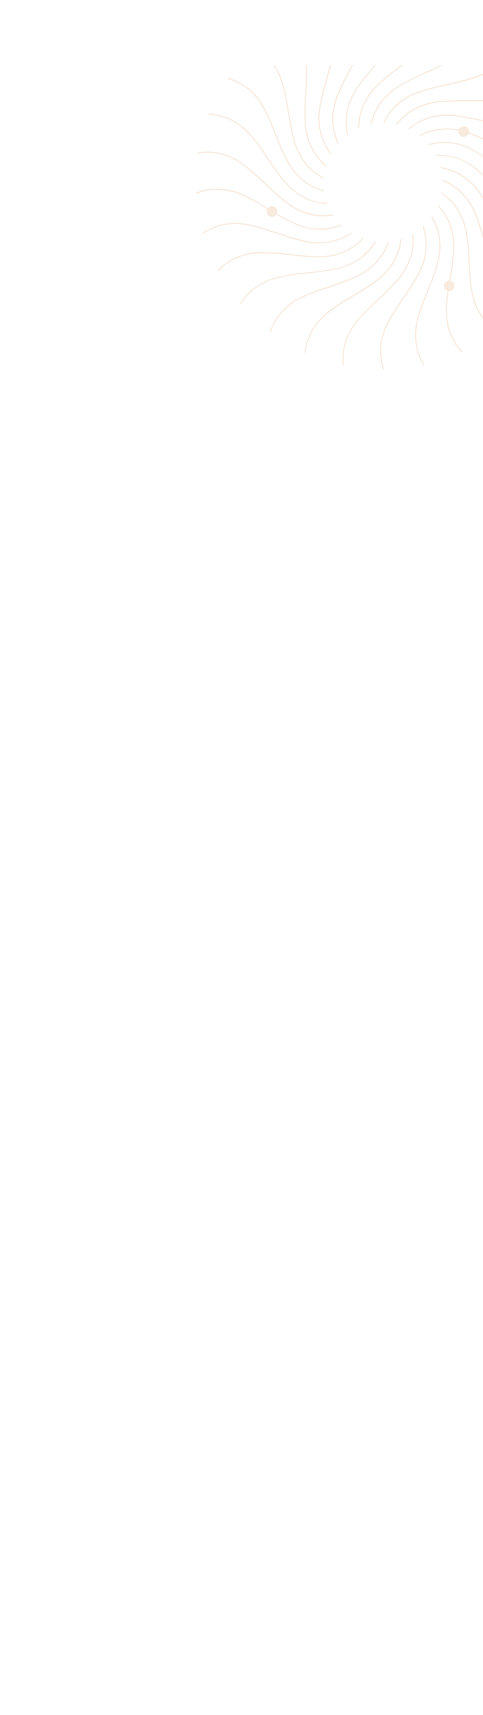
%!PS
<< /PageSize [483 1715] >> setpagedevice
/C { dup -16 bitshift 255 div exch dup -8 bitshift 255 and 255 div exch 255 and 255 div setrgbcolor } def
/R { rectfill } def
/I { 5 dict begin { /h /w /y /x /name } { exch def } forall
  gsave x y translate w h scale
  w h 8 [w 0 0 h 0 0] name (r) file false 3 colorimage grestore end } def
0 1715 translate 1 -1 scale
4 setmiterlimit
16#FFFFFF C
0 0 483 1715 R
(1.rgb) 196 65 287 305 I
showpage
